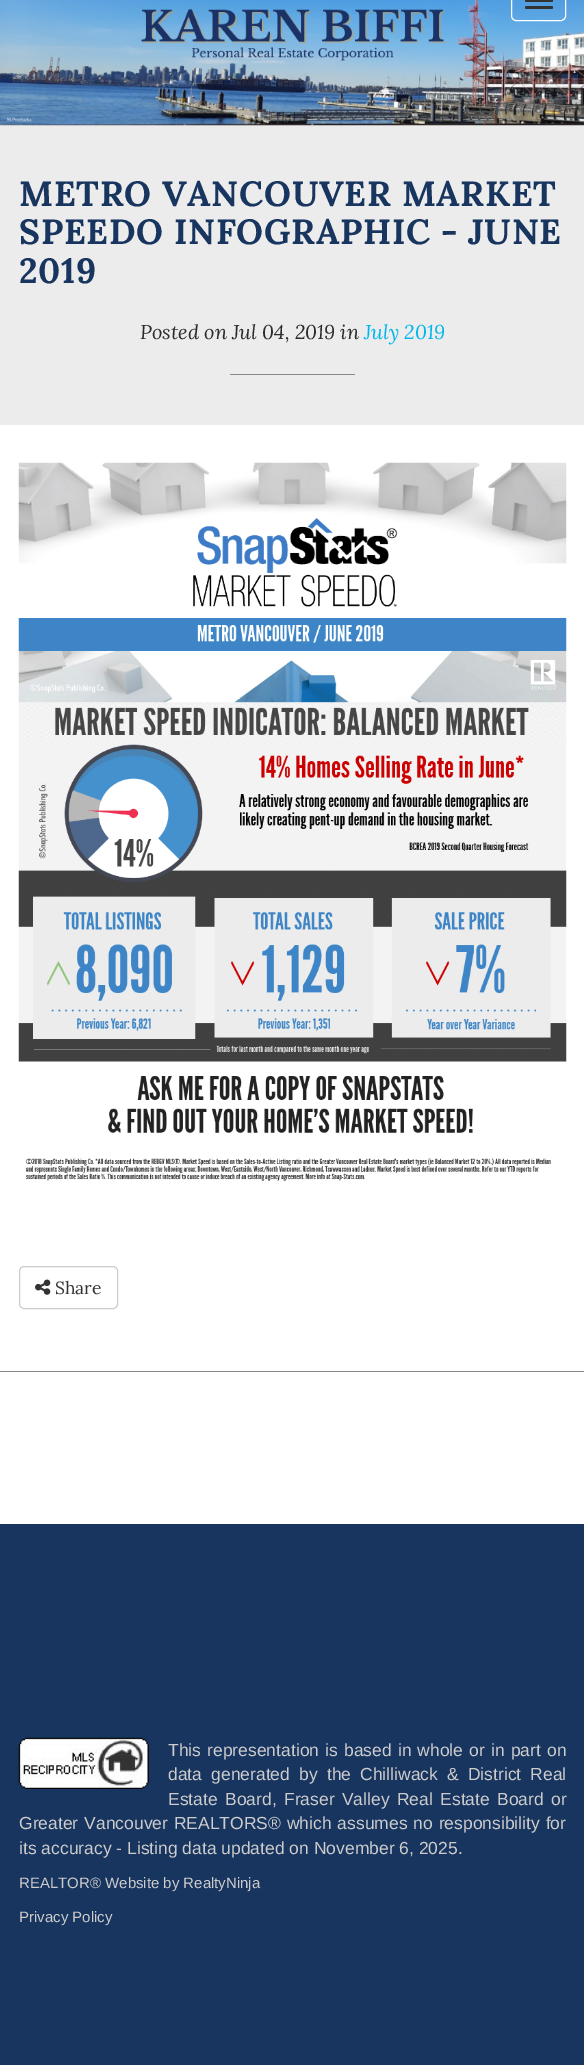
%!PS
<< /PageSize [584 2065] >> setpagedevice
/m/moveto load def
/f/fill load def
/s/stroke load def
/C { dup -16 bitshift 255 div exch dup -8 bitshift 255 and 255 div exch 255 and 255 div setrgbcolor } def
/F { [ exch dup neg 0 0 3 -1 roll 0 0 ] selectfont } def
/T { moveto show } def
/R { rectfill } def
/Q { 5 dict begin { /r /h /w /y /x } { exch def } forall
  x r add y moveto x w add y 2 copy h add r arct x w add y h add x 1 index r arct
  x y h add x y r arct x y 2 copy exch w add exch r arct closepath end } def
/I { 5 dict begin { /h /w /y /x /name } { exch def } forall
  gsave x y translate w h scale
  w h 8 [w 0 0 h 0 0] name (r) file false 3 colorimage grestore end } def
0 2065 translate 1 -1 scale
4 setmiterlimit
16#FFFFFF C
0 0 584 2065 R
16#ECECEC C
0 125 584 300 R
(1.rgb) 0 0 584 126 I
16#FFFFFF C
511.5 -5.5 54 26 4.5 Q s
16#333333 C
525 -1 28 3 1.5 Q f
525 6 28 3 1.5 Q f
/Lora-Bold 35 F
16#18355F C
19 206 m .7 0 (METRO VANCOUVER MARKET) ashow
19 244 m .7 0 (SPEEDO INFOGRAPHIC - JUNE) ashow
19 283 m .7 0 (2019) ashow
/Lora-Italic 20 F
16#2C2C2C C
(Posted on Jul 04, 2019 in) 140 339 T
16#00B7EC C
(July 2019) 364 339 T
16#888888 C
230 374 125 1 R
(2.rgb) 18 462 549 719 I
16#CCCCCC C
19.5 1266.5 98 42 4.5 Q s
(3.rgb) 35 1279 16 16 I
/Lora-Regular 17.5 F
16#333333 C
(Share) 55 1294 T
16#888888 C
0 1371 584 1 R
16#18355F C
0 1524 584 541 R
(4.rgb) 18 1737 131 52 I
/LiberationSans-Regular 17.5 F
16#CCCCCC C
168 1756 m 1.25 0 32 (This representation is based in whole or in part on) widthshow
168 1780 m 4.25 0 32 (data generated by the Chilliwack & District Real) widthshow
168 1805 m 2.5 0 32 (Estate Board, Fraser Valley Real Estate Board or) widthshow
19 1829 m 1 0 32 (Greater Vancouver REALTORS® which assumes no responsibility for) widthshow
(its accuracy - Listing data updated on November 6, 2025.) 19 1854 T
/LiberationSans-Regular 15 F
(REALTOR® Website by RealtyNinja) 19 1888 T
(Privacy Policy) 19 1922 T
showpage
